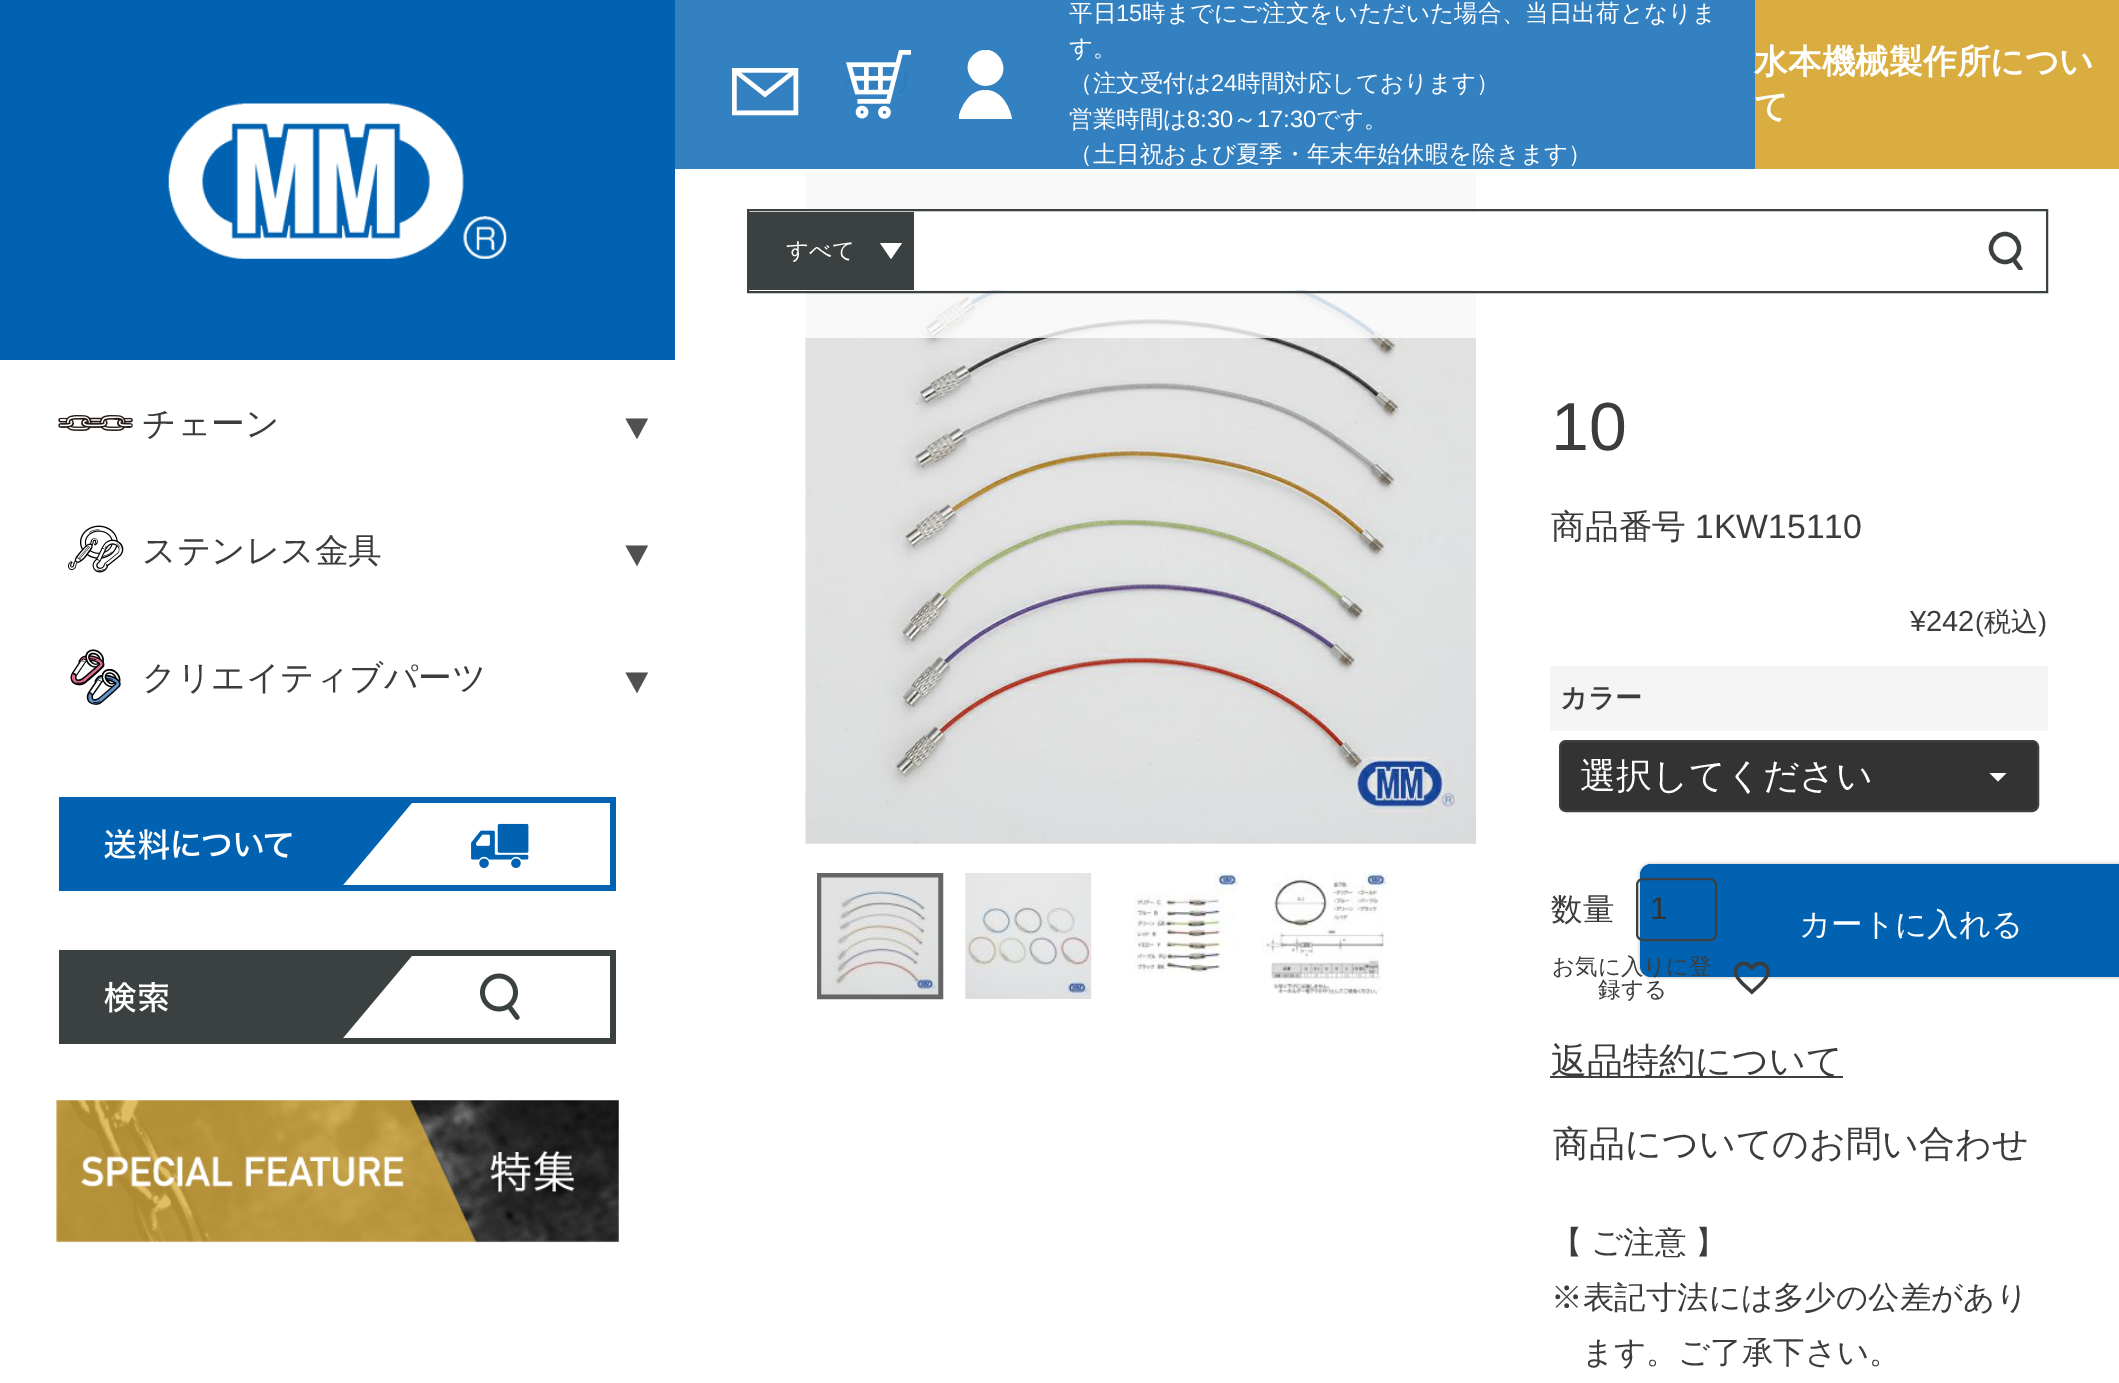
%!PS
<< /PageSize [2119 1383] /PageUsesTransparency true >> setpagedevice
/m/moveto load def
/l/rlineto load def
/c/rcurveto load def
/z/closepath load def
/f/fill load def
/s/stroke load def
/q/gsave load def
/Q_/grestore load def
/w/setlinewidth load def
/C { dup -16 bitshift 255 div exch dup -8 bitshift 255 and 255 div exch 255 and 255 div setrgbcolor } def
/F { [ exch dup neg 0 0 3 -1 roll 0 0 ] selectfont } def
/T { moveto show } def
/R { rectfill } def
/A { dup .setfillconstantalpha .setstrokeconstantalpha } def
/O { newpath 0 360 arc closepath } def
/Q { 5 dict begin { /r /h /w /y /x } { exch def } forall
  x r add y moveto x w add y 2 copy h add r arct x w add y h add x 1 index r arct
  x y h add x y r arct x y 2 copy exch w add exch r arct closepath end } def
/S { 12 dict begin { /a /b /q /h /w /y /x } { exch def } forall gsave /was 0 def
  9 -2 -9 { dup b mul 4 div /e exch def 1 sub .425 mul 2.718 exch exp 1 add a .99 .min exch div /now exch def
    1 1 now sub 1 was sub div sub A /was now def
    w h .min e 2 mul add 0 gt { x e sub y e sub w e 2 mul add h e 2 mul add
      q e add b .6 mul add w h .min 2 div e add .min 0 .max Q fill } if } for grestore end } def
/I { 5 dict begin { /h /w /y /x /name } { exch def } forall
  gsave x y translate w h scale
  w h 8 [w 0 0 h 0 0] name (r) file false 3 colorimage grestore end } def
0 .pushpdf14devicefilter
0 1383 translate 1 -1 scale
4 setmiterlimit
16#FFFFFF C
0 0 2119 1383 R
16#0062B1 C
0 0 675 360 R
(1.rgb) 168 103 339 156 I
(2.rgb) 58 415 75 16 I
/WenQuanYiZenHei-Medium 33.75 F
16#3C3C3C C
(チェーン) 142 435 T
16#505050 C
625.5 418.5 m 22.5 0 l -11 20.5 l z f
(3.rgb) 68 525 56 48 I
16#3C3C3C C
(ステンレス金具) 142 562 T
16#505050 C
625.5 545.5 m 22.5 0 l -11 20.5 l z f
(4.rgb) 70 649 51 56 I
16#3C3C3C C
(クリエイティブパーツ) 142 689 T
16#505050 C
625.5 672.5 m 22.5 0 l -11 20.5 l z f
(5.rgb) 59 797 557 94 I
(6.rgb) 59 950 557 94 I
(7.rgb) 56 1100 563 143 I
(9.rgb) 805 173 671 671 I
0.8 A
16#FFFFFF C
805 173 671 165 R
16#0062B1 C
675 0 1080 169 R
1 A
16#FFFFFF C
4.5 w
734.25 70.25 61.5 42.5 rectstroke
4.3 w
734.5 70.5 m 30.5 24 l 30.5 -24 l s
(8.rgb) 846 50 65 69 I
q
959 50 54 69 rectclip
976 53 m 19 -13 39 17 19 30 c -19 12 -39 -17 -19 -30 c z f
985 90 m -21 0 -27 29 -27 29 c 54 0 l 0 0 -5 -29 -27 -29 c z f
Q_
/WenQuanYiZenHei-Medium 23.6 F
(平日) 1069 21 T
/LiberationSans-Regular 23.6 F
(15) 1116 21 T
/WenQuanYiZenHei-Medium 23.6 F
(時までにご注文をいただいた場合、当日出荷となりま) 1142 21 T
(す。) 1069 56 T
(（注文受付は) 1069 91 T
/LiberationSans-Regular 23.6 F
(24) 1211 91 T
/WenQuanYiZenHei-Medium 23.6 F
(時間対応しております）) 1237 91 T
(営業時間は) 1069 127 T
/LiberationSans-Regular 23.6 F
(8:30) 1187 127 T
/WenQuanYiZenHei-Medium 23.6 F
(～) 1233 127 T
/LiberationSans-Regular 23.6 F
(17:30) 1257 127 T
/WenQuanYiZenHei-Medium 23.6 F
(です。) 1316 127 T
(（土日祝および夏季・年末年始休暇を除きます）) 1069 162 T
16#DAAD40 C
1755 0 364 169 R
/WenQuanYiZenHei-Bold 33.75 F
16#FFFFFF C
(水本機械製作所につい) 1754 73 T
(て) 1754 118 T
16#3B4040 C
2 w
748 210 1299 82 rectstroke
749 212 165 78 R
/WenQuanYiZenHei-Medium 22.5 F
16#FFFFFF C
(すべて) 786 258 T
880 243 m 22 0 l -11 16 l z f
914 212 562 78 R
16#3B4040 C
4.2 w
2005 248 14 O s
q
1989 232 34 38 rectclip
1 setlinecap
2015 261.5 m 5.5 7.5 l s
Q_
16#666666 C
5 w
819.5 875.5 121 121 rectstroke
(10.rgb) 821 877 118 118 I
(11.rgb) 965 873 127 126 I
(12.rgb) 1134 873 106 101 I
(13.rgb) 1262 873 126 122 I
/LiberationSans-Regular 68 F
16#3C3C3C C
(10) 1551 450 T
/WenQuanYiZenHei-Medium 33.75 F
(商品番号) 1551 538 T
/LiberationSans-Regular 33.75 F
(1KW15110) 1695 538 T
/LiberationSans-Regular 29 F
(¥242) 1910 631 T
/LiberationSans-Regular 27 F
(\() 1975 631 T
/WenQuanYiZenHei-Medium 27 F
(税込) 1984 631 T
/LiberationSans-Regular 27 F
(\)) 2038 631 T
16#F5F5F5 C
1550 666 498 65 R
/WenQuanYiZenHei-Bold 27 F
16#3C3C3C C
(カラー) 1560 707 T
16#333333 C
1560 741 478 70 6 Q q f Q_
16#3B4040 C
2 w
s
/WenQuanYiZenHei-Medium 36 F
16#FFFFFF C
(選択してください) 1580 788 T
1989.5 773 m 8.5 8.5 l 8.5 -8.5 l z f
/WenQuanYiZenHei-Medium 31.5 F
16#3C3C3C C
(数量) 1551 920 T
16#B2B2B2 C
1640 864 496 113 11 2 1 S
16#0062B1 C
1640 864 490 113 11 Q f
16#3B4040 C
1637 879 79 61 6 Q s
/LiberationSans-Regular 31.5 F
16#333333 C
(1) 1650 919 T
/WenQuanYiZenHei-Medium 22.5 F
16#3C3C3C C
(お気に入りに登) 1552 974 T
(録する) 1598 997 T
(14.rgb) 1733 961 37 34 I
/WenQuanYiZenHei-Medium 31.5 F
16#FFFFFF C
(カートに入れる) 1799 935 T
16#3B4040 C
1550 1076 293 2 R
/WenQuanYiZenHei-Medium 36 F
16#3C3C3C C
(返品特約について) 1551 1073 T
(商品についてのお問い合わせ) 1553 1156 T
/WenQuanYiZenHei-Medium 31.5 F
1551 1253 m -1 0 32 (【 ご注意 】) widthshow
(※表記寸法には多少の公差があり) 1551 1308 T
(ます。ご了承下さい。) 1582 1363 T
.poppdf14devicefilter showpage
